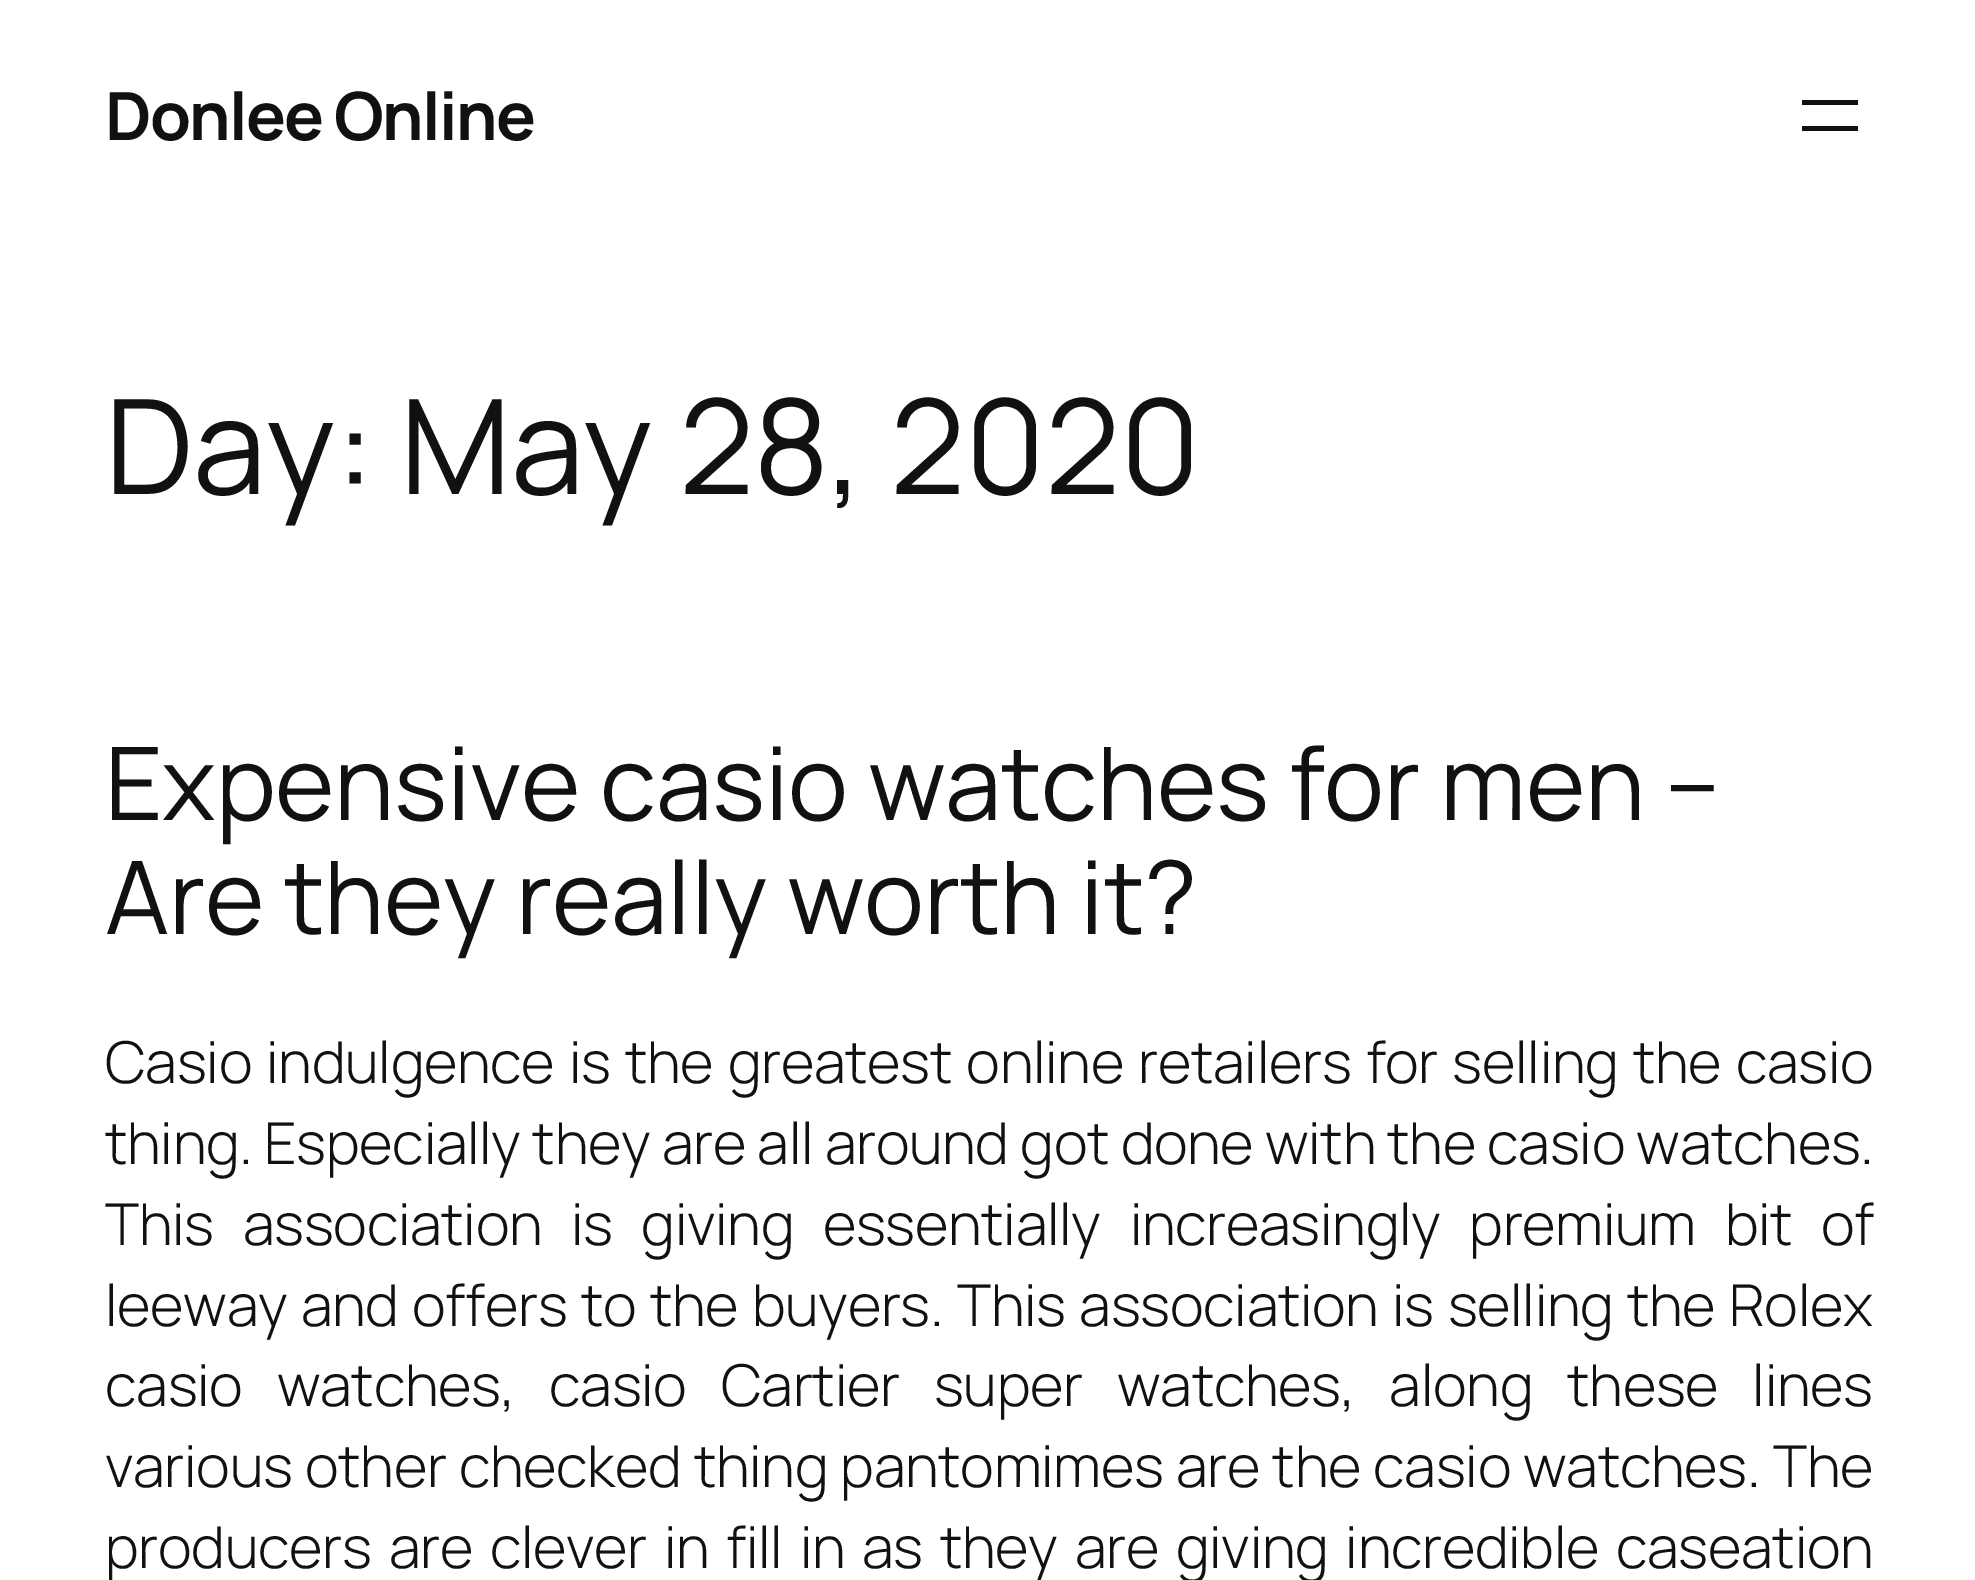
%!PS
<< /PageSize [1975 1580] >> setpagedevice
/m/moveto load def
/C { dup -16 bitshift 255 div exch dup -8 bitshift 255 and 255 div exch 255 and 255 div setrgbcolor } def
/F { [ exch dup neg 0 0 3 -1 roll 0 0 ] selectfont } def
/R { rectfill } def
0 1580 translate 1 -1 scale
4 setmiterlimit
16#FFFFFF C
0 0 1975 1580 R
/Manrope-Bold 66.5 F
16#111111 C
105 140 m -1.75 0 (Donlee Online) ashow
1802 100 56 5 R
1802 126 56 5 R
/Manrope-Regular 131.75 F
105 494 m -.35 0 (Day: May 28, 2020) ashow
/Manrope-Regular 101.4 F
105 820 m -.35 0 (Expensive casio watches for men –) ashow
105 934 m -.35 0 (Are they really worth it?) ashow
/Manrope-Light 57.7 F
105 1083 m 3.1 0 32 -.35 0 (Casio indulgence is the greatest online retailers for selling the casio) awidthshow
105 1164 m .25 0 32 -.35 0 (thing. Especially they are all around got done with the casio watches.) awidthshow
105 1245 m 17.5 0 32 -.35 0 (This association is giving essentially increasingly premium bit of) awidthshow
105 1326 m 2.25 0 32 -.35 0 (leeway and offers to the buyers. This association is selling the Rolex) awidthshow
105 1406 m 23 0 32 -.35 0 (casio watches, casio Cartier super watches, along these lines) awidthshow
105 1487 m 1.1 0 32 -.35 0 (various other checked thing pantomimes are the casio watches. The) awidthshow
105 1568 m 5.75 0 32 -.35 0 (producers are clever in fill in as they are giving incredible caseation) awidthshow
showpage
